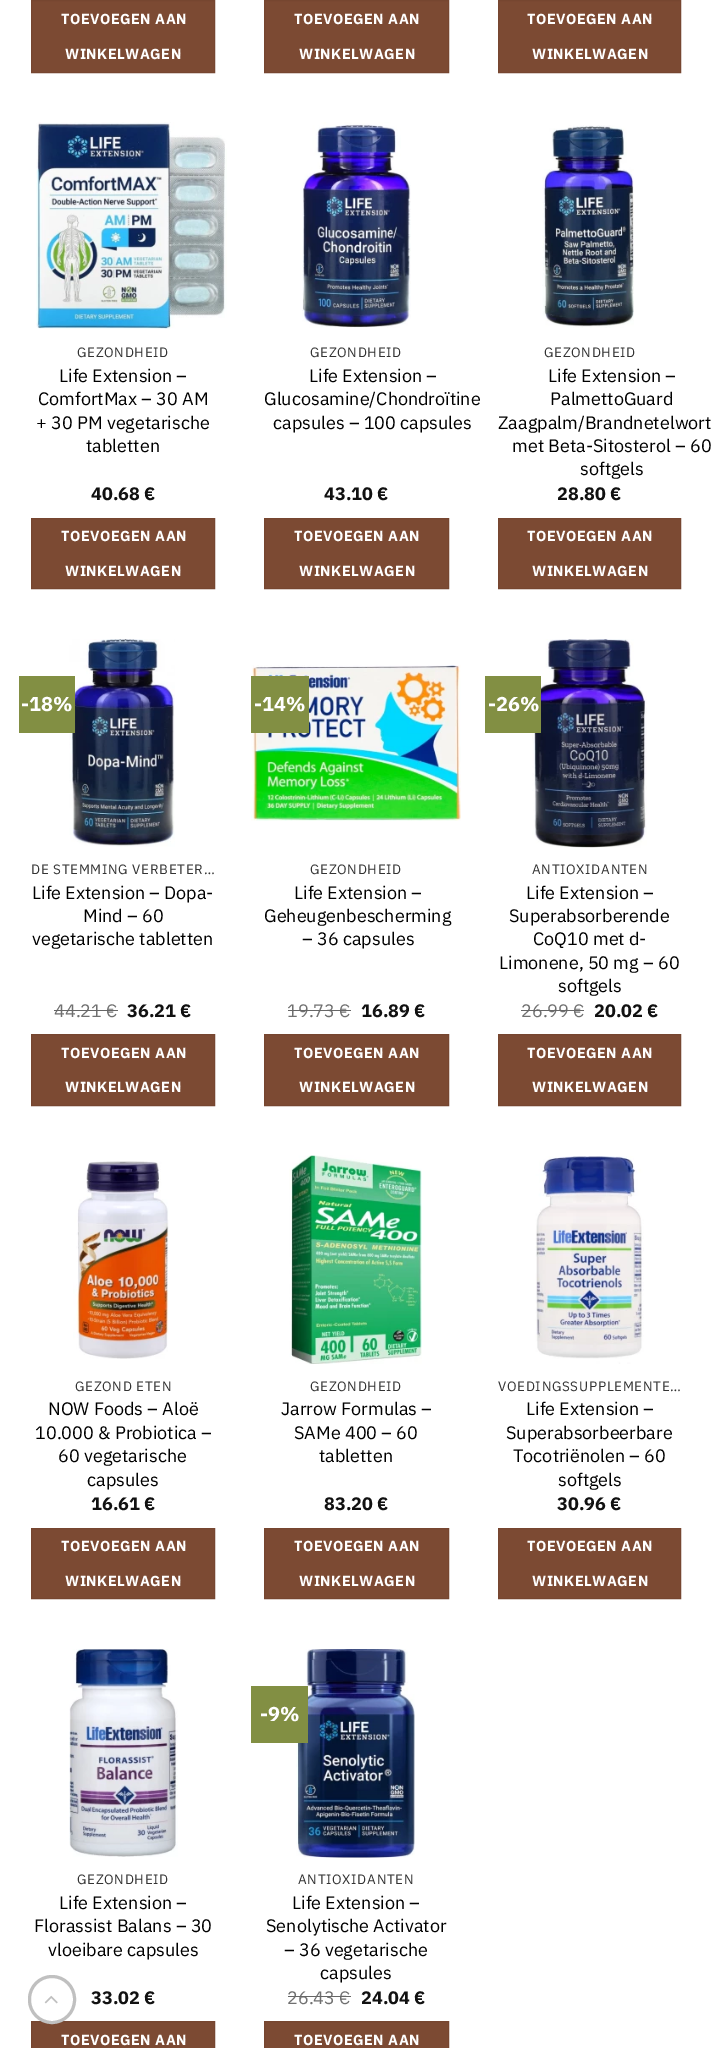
%!PS
<< /PageSize [712 2048] >> setpagedevice
/m/moveto load def
/l/rlineto load def
/z/closepath load def
/f/fill load def
/s/stroke load def
/q/gsave load def
/Q_/grestore load def
/w/setlinewidth load def
/C { dup -16 bitshift 255 div exch dup -8 bitshift 255 and 255 div exch 255 and 255 div setrgbcolor } def
/F { [ exch dup neg 0 0 3 -1 roll 0 0 ] selectfont } def
/T { moveto show } def
/R { rectfill } def
/Q { 5 dict begin { /r /h /w /y /x } { exch def } forall
  x r add y moveto x w add y 2 copy h add r arct x w add y h add x 1 index r arct
  x y h add x y r arct x y 2 copy exch w add exch r arct closepath end } def
/I { 5 dict begin { /h /w /y /x /name } { exch def } forall
  gsave x y translate w h scale
  w h 8 [w 0 0 h 0 0] name (r) file false 3 colorimage grestore end } def
0 2048 translate 1 -1 scale
4 setmiterlimit
16#FFFFFF C
0 0 712 2048 R
16#7C4A33 C
31.5 .5 m 183 0 l 0 72 l -183 0 l z q f Q_
16#764630 C
s
/IBMPlexSans-Bold 14.5 F
16#FFFFFF C
61 24 m .5 0 (TOEVOEGEN AAN) ashow
65 59 m .5 0 (WINKELWAGEN) ashow
16#7C4A33 C
264.5 .5 m 184 0 l 0 72 l -184 0 l z q f Q_
16#764630 C
s
16#FFFFFF C
294 24 m .5 0 (TOEVOEGEN AAN) ashow
299 59 m .5 0 (WINKELWAGEN) ashow
16#7C4A33 C
498.5 .5 m 182 0 l 0 72 l -182 0 l z q f Q_
16#764630 C
s
16#FFFFFF C
527 24 m .5 0 (TOEVOEGEN AAN) ashow
532 59 m .5 0 (WINKELWAGEN) ashow
(1.rgb) 36 122 191 207 I
/IBMPlexSans-Regular 13.5 F
16#333333 C
77 357 m .7 0 (GEZONDHEID) ashow
/IBMPlexSans-Regular 18 F
16#000000 C
(Life Extension –) 59 382 T
(ComfortMax – 30 AM) 38 405 T
(+ 30 PM vegetarische) 36 429 T
(tabletten) 86 452 T
/IBMPlexSans-Bold 18 F
16#111111 C
(40.68 €) 91 500 T
16#7C4A33 C
31.5 518.5 m 183 0 l 0 70 l -183 0 l z q f Q_
16#764630 C
s
/IBMPlexSans-Bold 14.5 F
16#FFFFFF C
61 541 m .5 0 (TOEVOEGEN AAN) ashow
65 576 m .5 0 (WINKELWAGEN) ashow
(2.rgb) 301 122 110 206 I
/IBMPlexSans-Regular 13.5 F
16#333333 C
310 357 m .7 0 (GEZONDHEID) ashow
/IBMPlexSans-Regular 18 F
16#000000 C
(Life Extension –) 309 382 T
(Glucosamine/Chondroïtine) 264 405 T
(capsules – 100 capsules) 273 429 T
/IBMPlexSans-Bold 18 F
16#111111 C
(43.10 €) 324 500 T
16#7C4A33 C
264.5 518.5 m 184 0 l 0 70 l -184 0 l z q f Q_
16#764630 C
s
/IBMPlexSans-Bold 14.5 F
16#FFFFFF C
294 541 m .5 0 (TOEVOEGEN AAN) ashow
299 576 m .5 0 (WINKELWAGEN) ashow
(3.rgb) 542 125 92 203 I
/IBMPlexSans-Regular 13.5 F
16#333333 C
544 357 m .7 0 (GEZONDHEID) ashow
/IBMPlexSans-Regular 18 F
16#000000 C
(Life Extension –) 548 382 T
(PalmettoGuard) 550 405 T
(Zaagpalm/Brandnetelwort) 498 429 T
(met Beta-Sitosterol – 60) 512 452 T
(softgels) 580 475 T
/IBMPlexSans-Bold 18 F
16#111111 C
(28.80 €) 557 500 T
16#7C4A33 C
498.5 518.5 m 182 0 l 0 70 l -182 0 l z q f Q_
16#764630 C
s
/IBMPlexSans-Bold 14.5 F
16#FFFFFF C
527 541 m .5 0 (TOEVOEGEN AAN) ashow
532 576 m .5 0 (WINKELWAGEN) ashow
(4.rgb) 69 639 106 208 I
16#828F43 C
19 676 56 57 R
/IBMPlexSans-Bold 20 F
16#FFFFFF C
(-18%) 21 711 T
/IBMPlexSans-Regular 13.5 F
16#333333 C
31 874 m .7 0 (DE STEMMING VERBETER…) ashow
/IBMPlexSans-Regular 18 F
16#000000 C
(Life Extension – Dopa-) 32 899 T
(Mind – 60) 83 922 T
(vegetarische tabletten) 32 945 T
16#707070 C
(44.21 €) 54 1017 T
16#666666 C
54 1010 64 1 R
/IBMPlexSans-Bold 18 F
16#111111 C
(36.21 €) 127 1017 T
16#7C4A33 C
31.5 1034.5 m 183 0 l 0 71 l -183 0 l z q f Q_
16#764630 C
s
/IBMPlexSans-Bold 14.5 F
16#FFFFFF C
61 1058 m .5 0 (TOEVOEGEN AAN) ashow
65 1092 m .5 0 (WINKELWAGEN) ashow
(5.rgb) 251 665 210 156 I
16#828F43 C
251 676 58 57 R
/IBMPlexSans-Bold 20 F
16#FFFFFF C
(-14%) 254 711 T
/IBMPlexSans-Regular 13.5 F
16#333333 C
310 874 m .7 0 (GEZONDHEID) ashow
/IBMPlexSans-Regular 18 F
16#000000 C
(Life Extension –) 294 899 T
(Geheugenbescherming) 264 922 T
(– 36 capsules) 302 945 T
16#707070 C
(19.73 €) 287 1017 T
16#666666 C
288 1010 63 1 R
/IBMPlexSans-Bold 18 F
16#111111 C
(16.89 €) 361 1017 T
16#7C4A33 C
264.5 1034.5 m 184 0 l 0 71 l -184 0 l z q f Q_
16#764630 C
s
/IBMPlexSans-Bold 14.5 F
16#FFFFFF C
294 1058 m .5 0 (TOEVOEGEN AAN) ashow
299 1092 m .5 0 (WINKELWAGEN) ashow
(6.rgb) 532 639 115 209 I
16#828F43 C
485 676 56 57 R
/IBMPlexSans-Bold 20 F
16#FFFFFF C
(-26%) 488 711 T
/IBMPlexSans-Regular 13.5 F
16#333333 C
532 874 m .7 0 (ANTIOXIDANTEN) ashow
/IBMPlexSans-Regular 18 F
16#000000 C
(Life Extension –) 526 899 T
(Superabsorberende) 509 922 T
(CoQ10 met d-) 533 945 T
(Limonene, 50 mg – 60) 499 969 T
(softgels) 558 992 T
16#707070 C
(26.99 €) 521 1017 T
16#666666 C
521 1010 63 1 R
/IBMPlexSans-Bold 18 F
16#111111 C
(20.02 €) 594 1017 T
16#7C4A33 C
498.5 1034.5 m 182 0 l 0 71 l -182 0 l z q f Q_
16#764630 C
s
/IBMPlexSans-Bold 14.5 F
16#FFFFFF C
527 1058 m .5 0 (TOEVOEGEN AAN) ashow
532 1092 m .5 0 (WINKELWAGEN) ashow
(7.rgb) 73 1161 96 198 I
/IBMPlexSans-Regular 13.5 F
16#333333 C
75 1391 m .7 0 (GEZOND ETEN) ashow
/IBMPlexSans-Regular 18 F
16#000000 C
(NOW Foods – Aloë) 48 1415 T
(10.000 & Probiotica –) 35 1439 T
(60 vegetarische) 58 1462 T
(capsules) 87 1486 T
/IBMPlexSans-Bold 18 F
16#111111 C
(16.61 €) 91 1510 T
16#7C4A33 C
31.5 1528.5 m 183 0 l 0 70 l -183 0 l z q f Q_
16#764630 C
s
/IBMPlexSans-Bold 14.5 F
16#FFFFFF C
61 1551 m .5 0 (TOEVOEGEN AAN) ashow
65 1586 m .5 0 (WINKELWAGEN) ashow
(8.rgb) 289 1155 133 209 I
/IBMPlexSans-Regular 13.5 F
16#333333 C
310 1391 m .7 0 (GEZONDHEID) ashow
/IBMPlexSans-Regular 18 F
16#000000 C
(Jarrow Formulas –) 281 1415 T
(SAMe 400 – 60) 294 1439 T
(tabletten) 319 1462 T
/IBMPlexSans-Bold 18 F
16#111111 C
(83.20 €) 324 1510 T
16#7C4A33 C
264.5 1528.5 m 184 0 l 0 70 l -184 0 l z q f Q_
16#764630 C
s
/IBMPlexSans-Bold 14.5 F
16#FFFFFF C
294 1551 m .5 0 (TOEVOEGEN AAN) ashow
299 1586 m .5 0 (WINKELWAGEN) ashow
(9.rgb) 535 1156 109 208 I
/IBMPlexSans-Regular 13.5 F
16#333333 C
498 1391 m .7 0 (VOEDINGSSUPPLEMENTE…) ashow
/IBMPlexSans-Regular 18 F
16#000000 C
(Life Extension –) 526 1415 T
(Superabsorbeerbare) 506 1439 T
(Tocotriënolen – 60) 513 1462 T
(softgels) 558 1486 T
/IBMPlexSans-Bold 18 F
16#111111 C
(30.96 €) 557 1510 T
16#7C4A33 C
498.5 1528.5 m 182 0 l 0 70 l -182 0 l z q f Q_
16#764630 C
s
/IBMPlexSans-Bold 14.5 F
16#FFFFFF C
527 1551 m .5 0 (TOEVOEGEN AAN) ashow
532 1586 m .5 0 (WINKELWAGEN) ashow
(10.rgb) 69 1649 109 208 I
/IBMPlexSans-Regular 13.5 F
16#333333 C
77 1884 m .7 0 (GEZONDHEID) ashow
/IBMPlexSans-Regular 18 F
16#000000 C
(Life Extension –) 59 1909 T
(Florassist Balans – 30) 34 1932 T
(vloeibare capsules) 48 1956 T
/IBMPlexSans-Bold 18 F
16#111111 C
(33.02 €) 91 2004 T
16#7C4A33 C
31.5 2021.5 m 183 0 l 0 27 l -183 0 l z q f Q_
16#764630 C
s
/IBMPlexSans-Bold 14.5 F
16#FFFFFF C
61 2045 m .5 0 (TOEVOEGEN AAN) ashow
(11.rgb) 296 1649 119 209 I
16#828F43 C
251 1686 57 57 R
/IBMPlexSans-Bold 20 F
16#FFFFFF C
(-9%) 260 1721 T
/IBMPlexSans-Regular 13.5 F
16#333333 C
298 1884 m .7 0 (ANTIOXIDANTEN) ashow
/IBMPlexSans-Regular 18 F
16#000000 C
(Life Extension –) 292 1909 T
(Senolytische Activator) 266 1932 T
(– 36 vegetarische) 284 1956 T
(capsules) 320 1979 T
16#707070 C
(26.43 €) 287 2004 T
16#666666 C
288 1996 63 1 R
/IBMPlexSans-Bold 18 F
16#111111 C
(24.04 €) 361 2004 T
16#7C4A33 C
264.5 2021.5 m 184 0 l 0 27 l -184 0 l z q f Q_
16#764630 C
s
/IBMPlexSans-Bold 14.5 F
16#FFFFFF C
294 2045 m .5 0 (TOEVOEGEN AAN) ashow
16#C0C0C0 C
3 w
29.5 1976.5 45 46 22.5 Q s
(12.rgb) 44 1995 14 9 I
showpage
